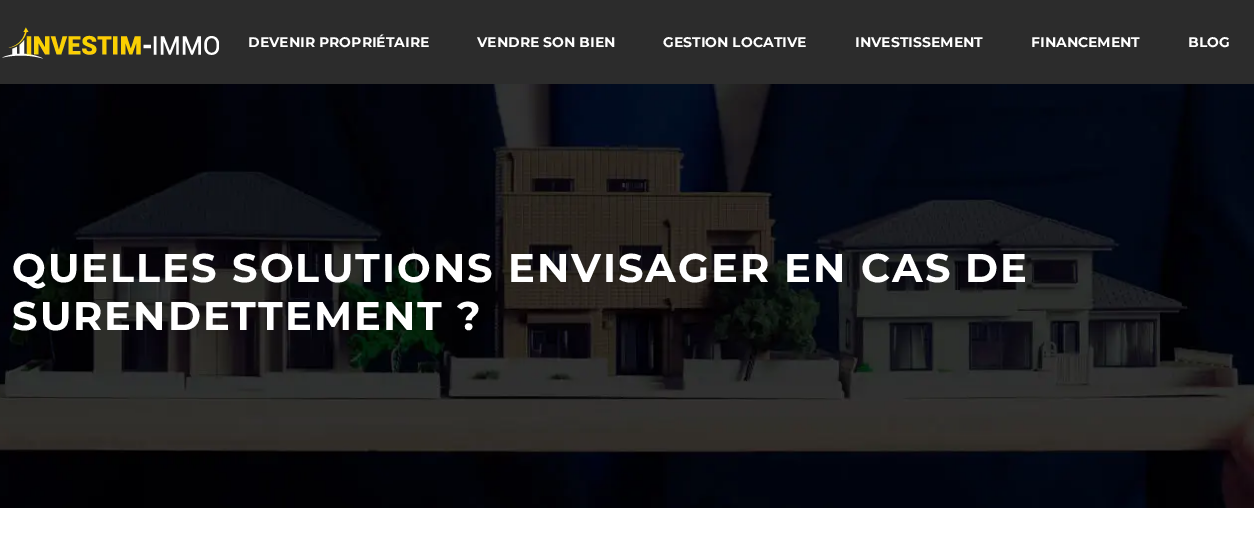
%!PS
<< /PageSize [1254 547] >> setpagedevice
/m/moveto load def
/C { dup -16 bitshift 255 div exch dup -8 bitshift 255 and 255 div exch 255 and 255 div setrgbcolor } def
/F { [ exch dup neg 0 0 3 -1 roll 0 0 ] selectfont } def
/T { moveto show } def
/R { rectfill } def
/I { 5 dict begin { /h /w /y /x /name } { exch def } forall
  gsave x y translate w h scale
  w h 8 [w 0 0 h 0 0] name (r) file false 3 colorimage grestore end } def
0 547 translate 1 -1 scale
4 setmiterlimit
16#FFFFFF C
0 0 1254 547 R
16#2C2C2C C
0 0 1254 84 R
(1.rgb) 2 27 217 32 I
/Montserrat-Bold 14 F
16#FFFFFF C
(DEVENIR PROPRIÉTAIRE) 248 47 T
(VENDRE SON BIEN) 477 47 T
(GESTION LOCATIVE) 663 47 T
(INVESTISSEMENT) 855 47 T
(FINANCEMENT) 1031 47 T
(BLOG) 1188 47 T
(2.rgb) 0 84 1254 424 I
/Montserrat-Bold 40 F
12 282 m 2 0 (QUELLES SOLUTIONS ENVISAGER EN CAS DE) ashow
12 330 m 2 0 (SURENDETTEMENT ?) ashow
showpage
